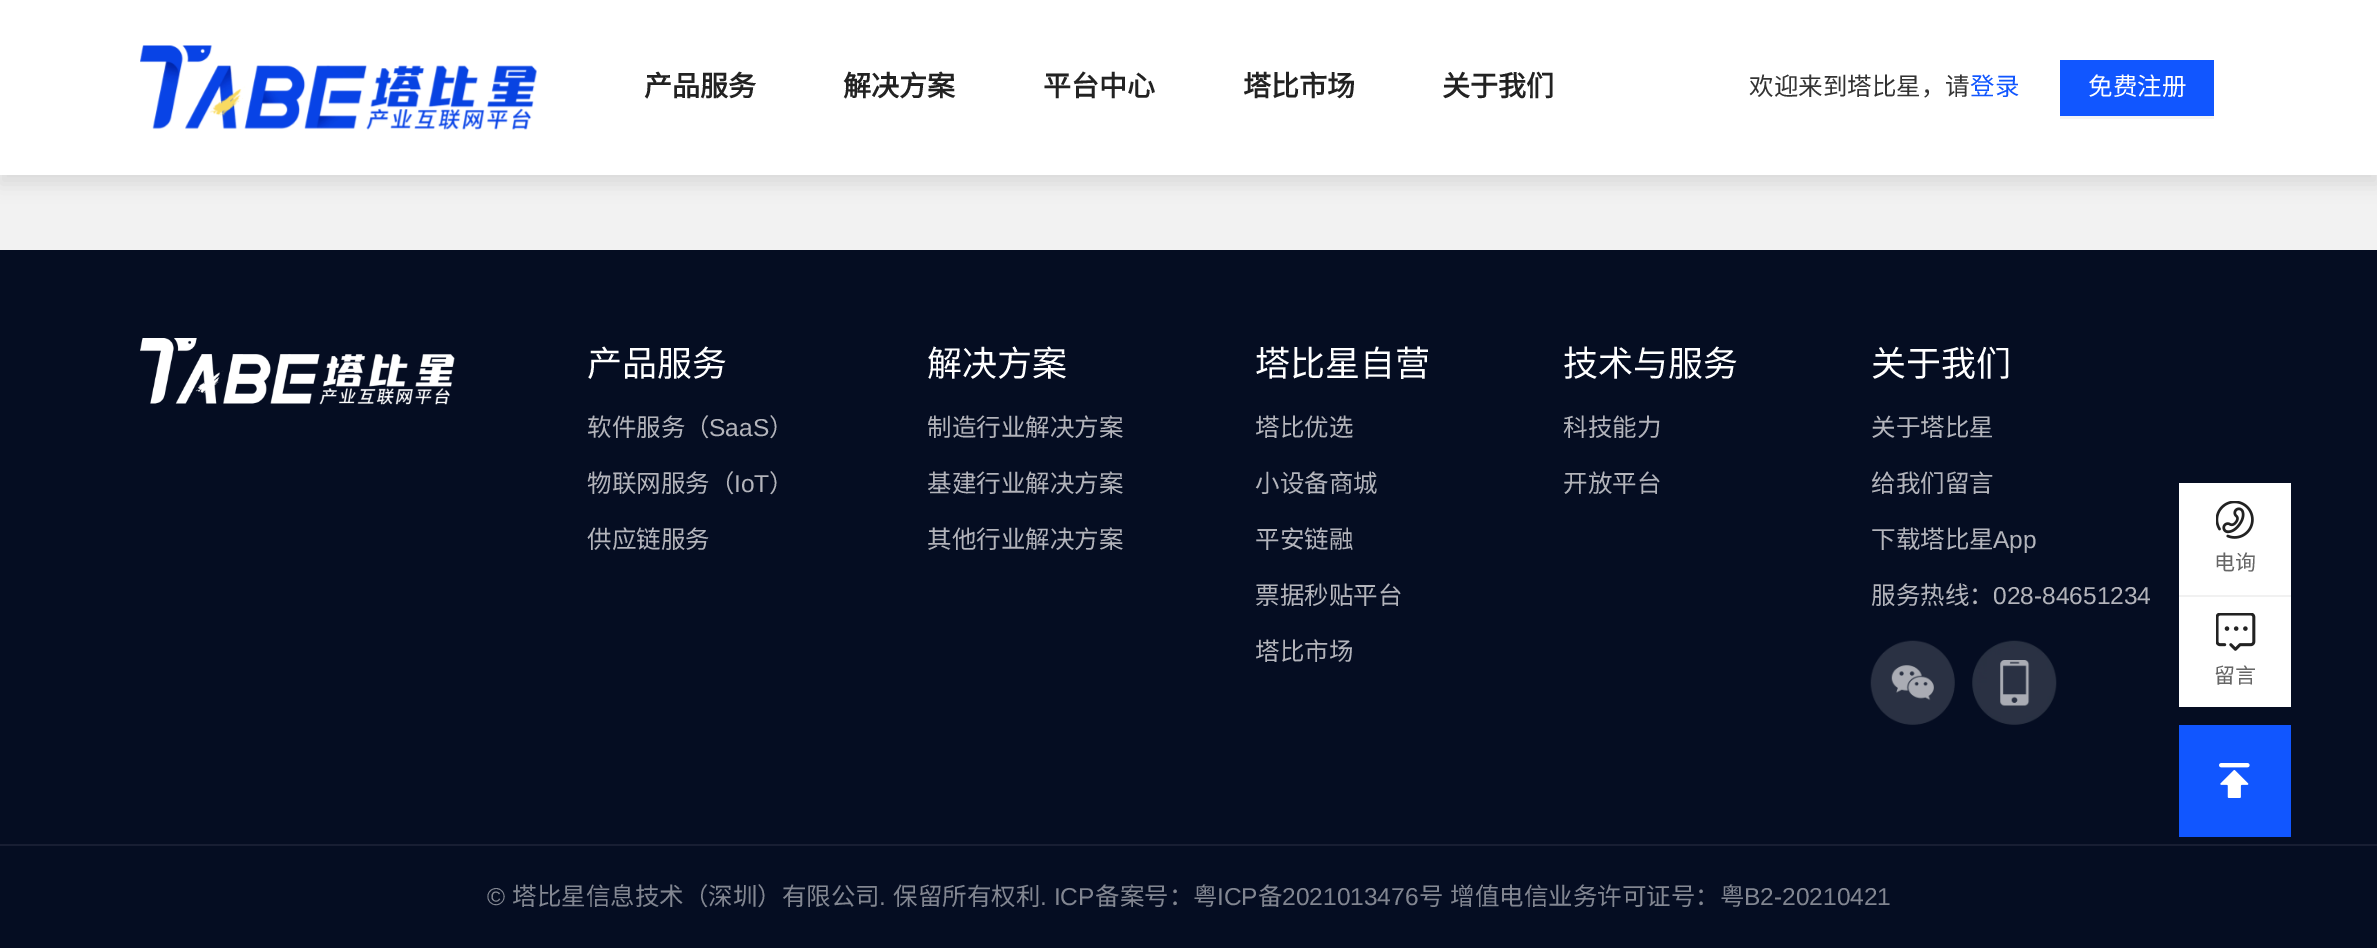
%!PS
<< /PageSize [2377 948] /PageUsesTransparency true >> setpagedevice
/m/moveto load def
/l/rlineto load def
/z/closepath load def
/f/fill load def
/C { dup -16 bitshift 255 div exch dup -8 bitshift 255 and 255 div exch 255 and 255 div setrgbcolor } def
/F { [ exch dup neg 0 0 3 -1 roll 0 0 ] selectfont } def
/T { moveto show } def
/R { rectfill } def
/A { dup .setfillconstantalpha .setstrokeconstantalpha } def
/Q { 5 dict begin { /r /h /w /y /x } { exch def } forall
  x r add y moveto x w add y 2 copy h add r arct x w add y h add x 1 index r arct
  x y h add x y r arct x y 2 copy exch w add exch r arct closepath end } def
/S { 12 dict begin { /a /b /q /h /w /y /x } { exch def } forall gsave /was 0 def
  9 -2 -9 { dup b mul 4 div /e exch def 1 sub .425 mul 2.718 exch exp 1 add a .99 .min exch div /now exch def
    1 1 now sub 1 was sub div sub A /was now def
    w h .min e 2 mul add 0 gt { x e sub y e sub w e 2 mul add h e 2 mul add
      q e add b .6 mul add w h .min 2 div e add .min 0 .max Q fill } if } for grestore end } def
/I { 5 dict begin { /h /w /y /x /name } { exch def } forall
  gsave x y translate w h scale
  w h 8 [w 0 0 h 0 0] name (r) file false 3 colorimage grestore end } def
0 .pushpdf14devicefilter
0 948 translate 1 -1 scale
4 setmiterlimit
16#F2F2F2 C
0 0 2377 948 R
16#000000 C
0 9 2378 175 0 9 .1 S
16#FFFFFF C
0 0 2377 175 R
(1.rgb) 140 45 397 85 I
/NotoSansCJKSC-Bold 28 F
16#222222 C
(产品服务) 644 96 T
(解决方案) 843 96 T
(平台中心) 1043 96 T
(塔比市场) 1243 96 T
(关于我们) 1442 96 T
/NotoSansCJKSC-Regular 24.5 F
16#333333 C
(欢迎来到塔比星，请) 1749 95 T
16#1156FF C
(登录) 1970 95 T
16#F4F4F4 C
2060 116 m 0 3 l 154 0 l 0 -56 l 0 53 l z f
16#1156FF C
2060 60 154 56 R
16#FFFFFF C
(免费注册) 2088 95 T
16#050D22 C
0 250 2377 698 R
(2.rgb) 140 338 315 67 I
/NotoSansCJKSC-Regular 35 F
16#FFFFFF C
(产品服务) 587 376 T
/NotoSansCJKSC-Regular 24.5 F
16#B3B4BB C
(软件服务（) 587 436 T
/LiberationSans-Regular 24.5 F
(SaaS) 709 436 T
/NotoSansCJKSC-Regular 24.5 F
(）) 769 436 T
(物联网服务（) 587 492 T
/LiberationSans-Regular 24.5 F
(IoT) 734 492 T
/NotoSansCJKSC-Regular 24.5 F
(）) 769 492 T
(供应链服务) 587 548 T
/NotoSansCJKSC-Regular 35 F
16#FFFFFF C
(解决方案) 927 376 T
/NotoSansCJKSC-Regular 24.5 F
16#B3B4BB C
(制造行业解决方案) 927 436 T
(基建行业解决方案) 927 492 T
(其他行业解决方案) 927 548 T
/NotoSansCJKSC-Regular 35 F
16#FFFFFF C
(塔比星自营) 1255 376 T
/NotoSansCJKSC-Regular 24.5 F
16#B3B4BB C
(塔比优选) 1255 436 T
(小设备商城) 1255 492 T
(平安链融) 1255 548 T
(票据秒贴平台) 1255 604 T
(塔比市场) 1255 660 T
/NotoSansCJKSC-Regular 35 F
16#FFFFFF C
(技术与服务) 1563 376 T
/NotoSansCJKSC-Regular 24.5 F
16#B3B4BB C
(科技能力) 1563 436 T
(开放平台) 1563 492 T
/NotoSansCJKSC-Regular 35 F
16#FFFFFF C
(关于我们) 1871 376 T
/NotoSansCJKSC-Regular 24.5 F
16#B3B4BB C
(关于塔比星) 1871 436 T
(给我们留言) 1871 492 T
(下载塔比星) 1871 548 T
/LiberationSans-Regular 24.5 F
(App) 1993 548 T
/NotoSansCJKSC-Regular 24.5 F
(服务热线：) 1871 604 T
/LiberationSans-Regular 24.5 F
(028-84651234) 1993 604 T
(3.rgb) 1870 640 85 85 I
(4.rgb) 1972 640 85 85 I
16#181E33 C
0 844 2377 2 R
16#828691 C
(©) 487 905 T
/NotoSansCJKSC-Regular 24.5 F
(塔比星信息技术（深圳）有限公司) 512 905 T
/LiberationSans-Regular 24.5 F
(.) 879 905 T
/NotoSansCJKSC-Regular 24.5 F
(保留所有权利) 893 905 T
/LiberationSans-Regular 24.5 F
(. ICP) 1040 905 T
/NotoSansCJKSC-Regular 24.5 F
(备案号：粤) 1095 905 T
/LiberationSans-Regular 24.5 F
(ICP) 1217 905 T
/NotoSansCJKSC-Regular 24.5 F
(备) 1258 905 T
/LiberationSans-Regular 24.5 F
(2021013476) 1282 905 T
/NotoSansCJKSC-Regular 24.5 F
(号) 1419 905 T
(增值电信业务许可证号：粤) 1450 905 T
/LiberationSans-Regular 24.5 F
(B2-20210421) 1744 905 T
16#FFFFFF C
2179 483 112 112 R
(5.rgb) 2216 501 38 38 I
/NotoSansCJKSC-Regular 21 F
16#666666 C
(电询) 2214 570 T
16#FFFFFF C
2179 597 112 110 R
16#F1F1F1 C
2179 595 112 2 R
(6.rgb) 2216 613 40 38 I
16#666666 C
(留言) 2214 683 T
16#1156FF C
2179 725 112 112 R
(7.rgb) 2219 763 31 35 I
.poppdf14devicefilter showpage
